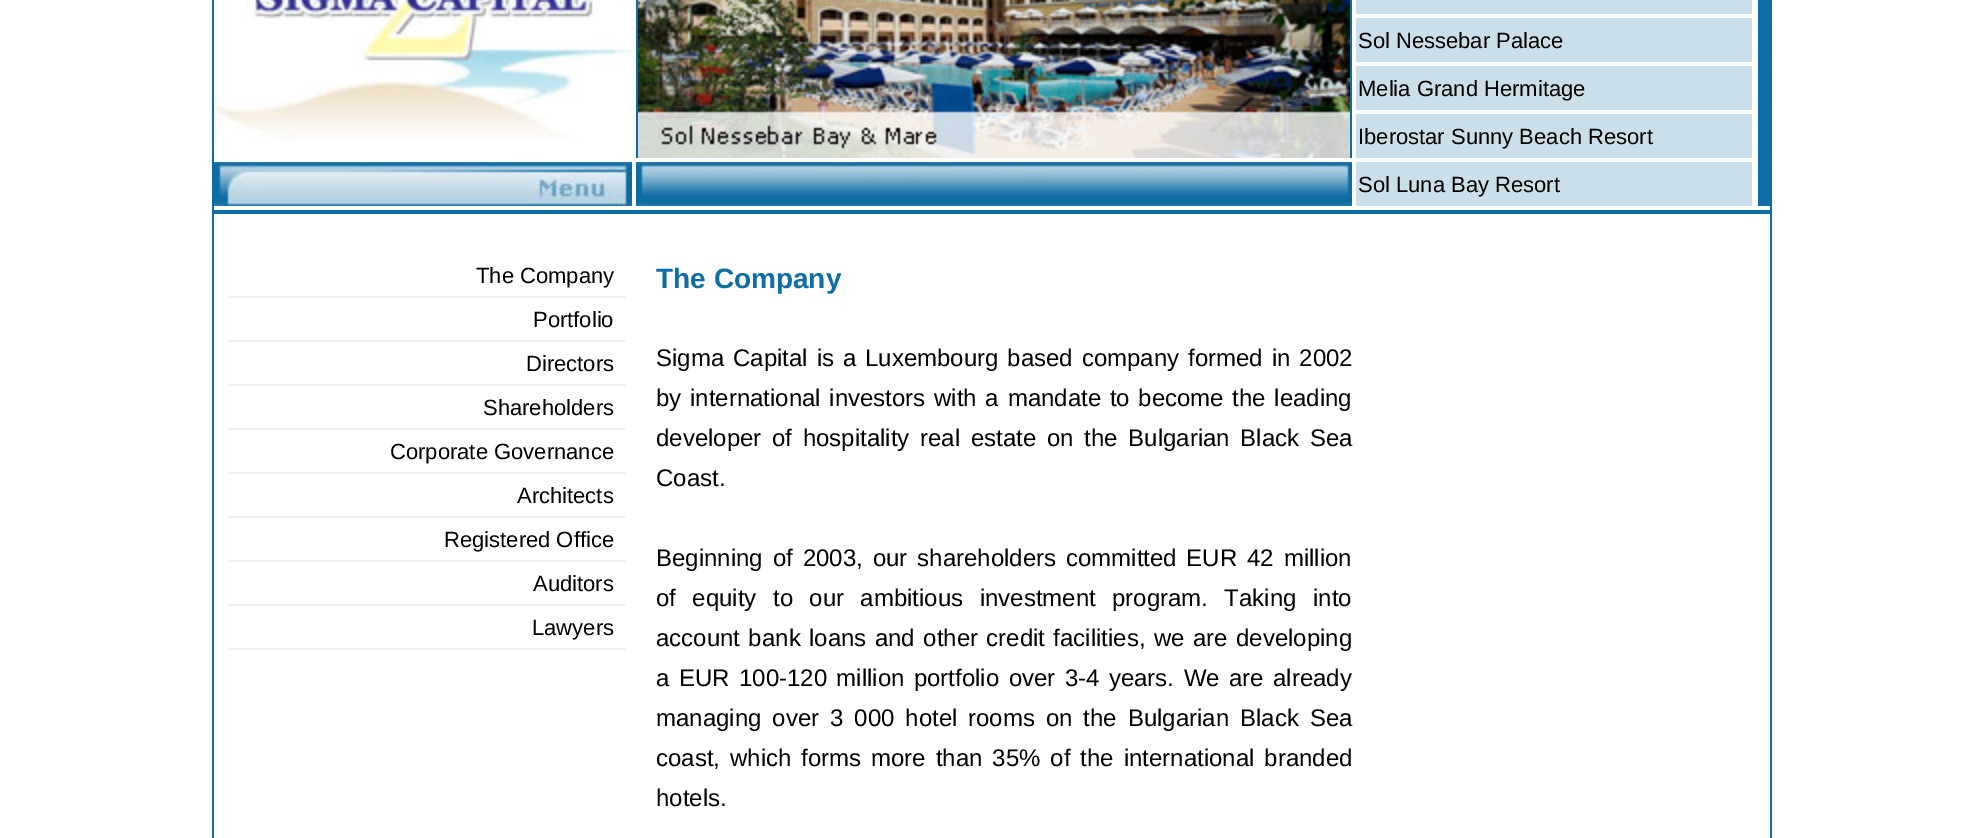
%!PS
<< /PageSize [1983 838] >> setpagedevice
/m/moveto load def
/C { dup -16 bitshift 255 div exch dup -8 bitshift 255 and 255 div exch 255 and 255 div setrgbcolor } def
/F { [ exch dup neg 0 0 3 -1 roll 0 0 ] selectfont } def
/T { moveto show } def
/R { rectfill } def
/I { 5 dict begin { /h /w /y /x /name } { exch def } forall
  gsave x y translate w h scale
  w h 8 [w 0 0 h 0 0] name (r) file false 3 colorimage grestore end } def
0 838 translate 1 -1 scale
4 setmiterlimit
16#FFFFFF C
0 0 1983 838 R
16#0E6DA5 C
1770 0 2 838 R
212 0 2 838 R
(1.rgb) 214 0 418 141 I
(2.rgb) 214 162 418 44 I
636 0 716 158 R
(3.rgb) 638 0 712 158 I
(4.rgb) 636 162 716 44 I
1758 0 12 206 R
16#CBDFEA C
1356 0 396 14 R
1356 18 396 44 R
/LiberationSans-Regular 22 F
16#000000 C
(Sol Nessebar Palace) 1358 48 T
16#CBDFEA C
1356 66 396 44 R
16#000000 C
(Melia Grand Hermitage) 1358 96 T
16#CBDFEA C
1356 114 396 44 R
16#000000 C
(Iberostar Sunny Beach Resort) 1358 144 T
16#CBDFEA C
1356 162 396 44 R
16#000000 C
(Sol Luna Bay Resort) 1358 192 T
16#0E6DA5 C
214 210 1556 4 R
16#EFEFEF C
228 296 398 2 R
16#000000 C
(The Company) 476 283 T
16#EFEFEF C
228 340 398 2 R
16#000000 C
(Portfolio) 533 327 T
16#EFEFEF C
228 384 398 2 R
16#000000 C
(Directors) 526 371 T
16#EFEFEF C
228 428 398 2 R
16#000000 C
(Shareholders) 483 415 T
16#EFEFEF C
228 472 398 2 R
16#000000 C
(Corporate Governance) 390 459 T
16#EFEFEF C
228 516 398 2 R
16#000000 C
(Architects) 517 503 T
16#EFEFEF C
228 560 398 2 R
16#000000 C
(Registered Office) 444 547 T
16#EFEFEF C
228 604 398 2 R
16#000000 C
(Auditors) 533 591 T
16#EFEFEF C
228 648 398 2 R
16#000000 C
(Lawyers) 532 635 T
/LiberationSans-Bold 28 F
16#0E6DA5 C
(The Company) 656 288 T
/LiberationSans-Regular 24 F
16#000000 C
656 366 m 2.25 0 32 (Sigma Capital is a Luxembourg based company formed in 2002) widthshow
656 406 m 2 0 32 (by international investors with a mandate to become the leading) widthshow
656 446 m 4 0 32 (developer of hospitality real estate on the Bulgarian Black Sea) widthshow
(Coast.) 656 486 T
656 566 m 3.25 0 32 (Beginning of 2003, our shareholders committed EUR 42 million) widthshow
656 606 m 9.75 0 32 (of equity to our ambitious investment program. Taking into) widthshow
656 646 m 1.75 0 32 (account bank loans and other credit facilities, we are developing) widthshow
656 686 m 2.75 0 32 (a EUR 100-120 million portfolio over 3-4 years. We are already) widthshow
656 726 m 4.25 0 32 (managing over 3 000 hotel rooms on the Bulgarian Black Sea) widthshow
656 766 m 3.25 0 32 (coast, which forms more than 35% of the international branded) widthshow
(hotels.) 656 806 T
showpage
